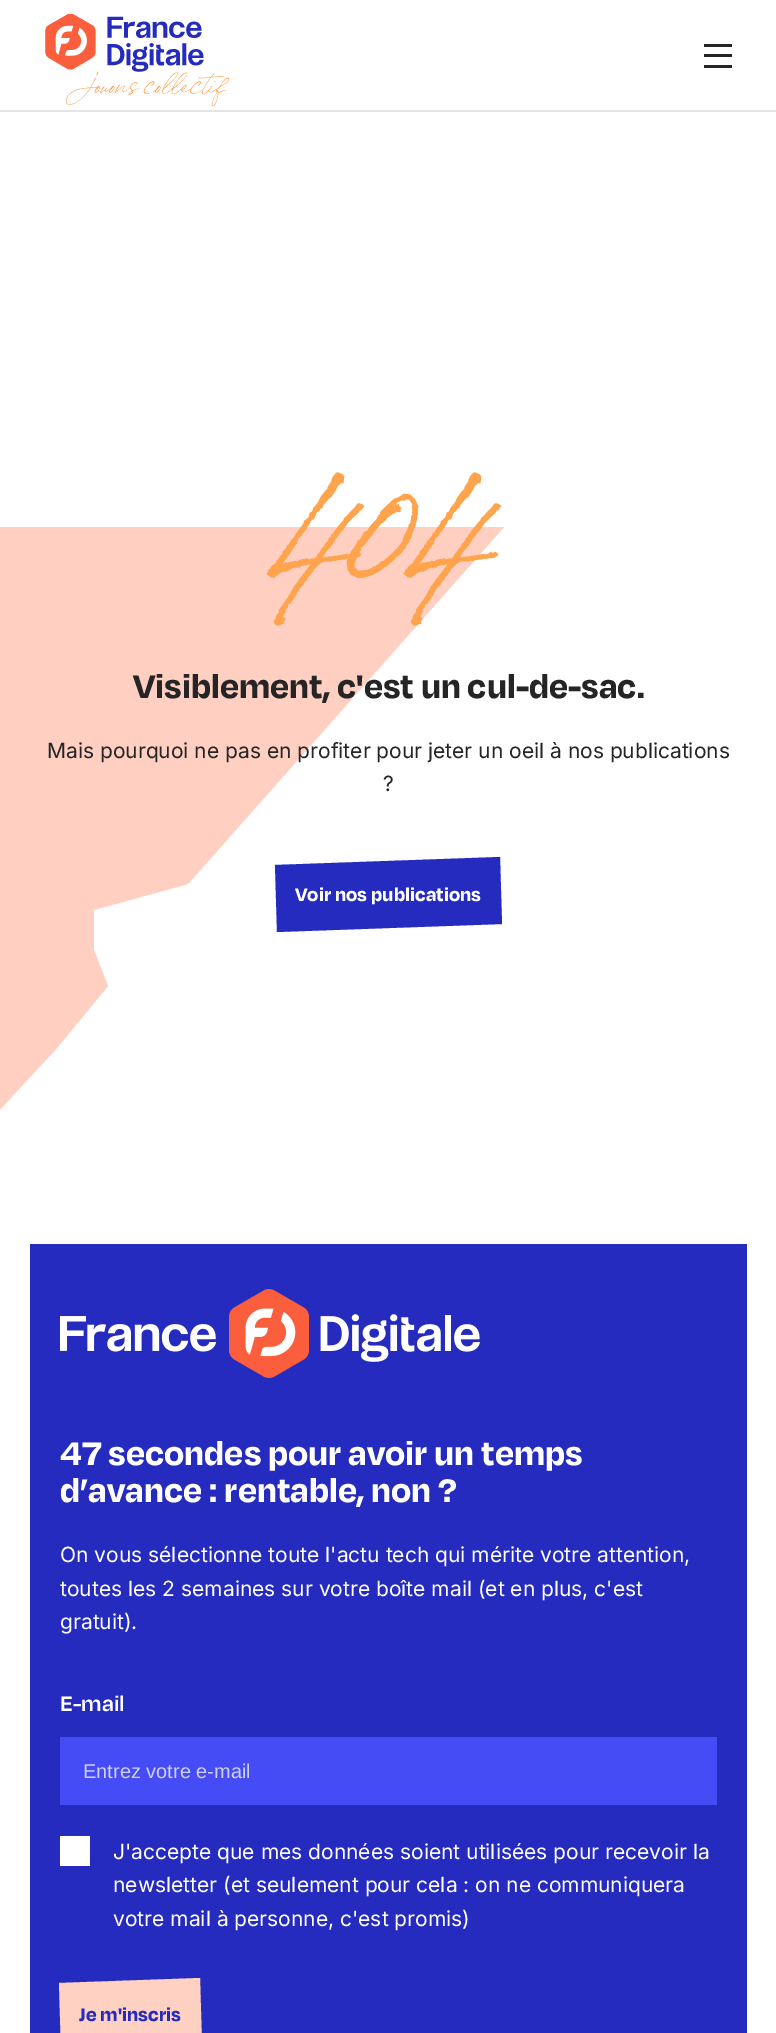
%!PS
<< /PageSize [776 2033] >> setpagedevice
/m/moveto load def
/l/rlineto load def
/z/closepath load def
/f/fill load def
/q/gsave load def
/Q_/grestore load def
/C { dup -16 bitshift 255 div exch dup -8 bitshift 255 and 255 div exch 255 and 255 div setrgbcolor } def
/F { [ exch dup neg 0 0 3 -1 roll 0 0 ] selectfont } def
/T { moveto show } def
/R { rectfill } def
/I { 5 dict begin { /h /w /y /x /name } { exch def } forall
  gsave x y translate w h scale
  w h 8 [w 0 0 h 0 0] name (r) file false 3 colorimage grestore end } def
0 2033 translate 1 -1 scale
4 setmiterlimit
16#FFFFFF C
0 0 776 2033 R
16#E4E4E4 C
0 110 776 2 R
(1.rgb) 45 14 185 93 I
16#252525 C
704 44 28 3 R
704 54 28 3 R
704 65 28 3 R
q
0 527 506 1200 rectclip
16#FFD0C1 C
188 884 m 317 -358 l -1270 0 l 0 1057 l 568 0 l 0 -186 l 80 -161 l 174 -188 l 51 -62 l -14 -36 l 0 -40 l z f
Q_
/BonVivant-Regular 210 F
16#FFA34D C
(404) 281 563 T
/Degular-Bold 37.5 F
16#252525 C
(Visiblement, c'est un cul-de-sac.) 133 698 T
/Inter-Regular 21 F
(Mais pourquoi ne pas en profiter pour jeter un oeil à nos publications) 47 758 T
(?) 383 791 T
16#262BC0 C
275 865 m 225 -8 l 2 67 l -225 8 l z f
/Degular-Bold 21 F
16#FFFFFF C
(Voir nos publications) 295 901 T
16#262BC0 C
30 1244 717 789 R
(2.rgb) 60 1289 420 89 I
/Degular-Bold 37.5 F
16#FFFFFF C
(47 secondes pour avoir un temps) 60 1465 T
(d’avance : rentable, non ?) 60 1502 T
/Inter-Regular 21 F
(On vous sélectionne toute l'actu tech qui mérite votre attention,) 60 1562 T
(toutes les 2 semaines sur votre boîte mail \(et en plus, c'est) 60 1596 T
(gratuit\).) 60 1629 T
/Degular-SemiBold 24 F
(E-mail) 60 1711 T
16#454CF6 C
60 1737 657 68 R
/LiberationSans-Regular 20 F
16#D0D1FB C
(Entrez votre e-mail) 83 1778 T
16#FFFFFF C
60 1836 30 30 R
/Inter-Regular 21 F
(J'accepte que mes données soient utilisées pour recevoir la) 113 1859 T
(newsletter \(et seulement pour cela : on ne communiquera) 113 1892 T
(votre mail à personne, c'est promis\)) 113 1926 T
16#FFD1C2 C
59 1983 m 141 -5 l 2 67 l -141 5 l z f
/Degular-Bold 21 F
16#262BC0 C
(Je m'inscris) 79 2021 T
showpage
